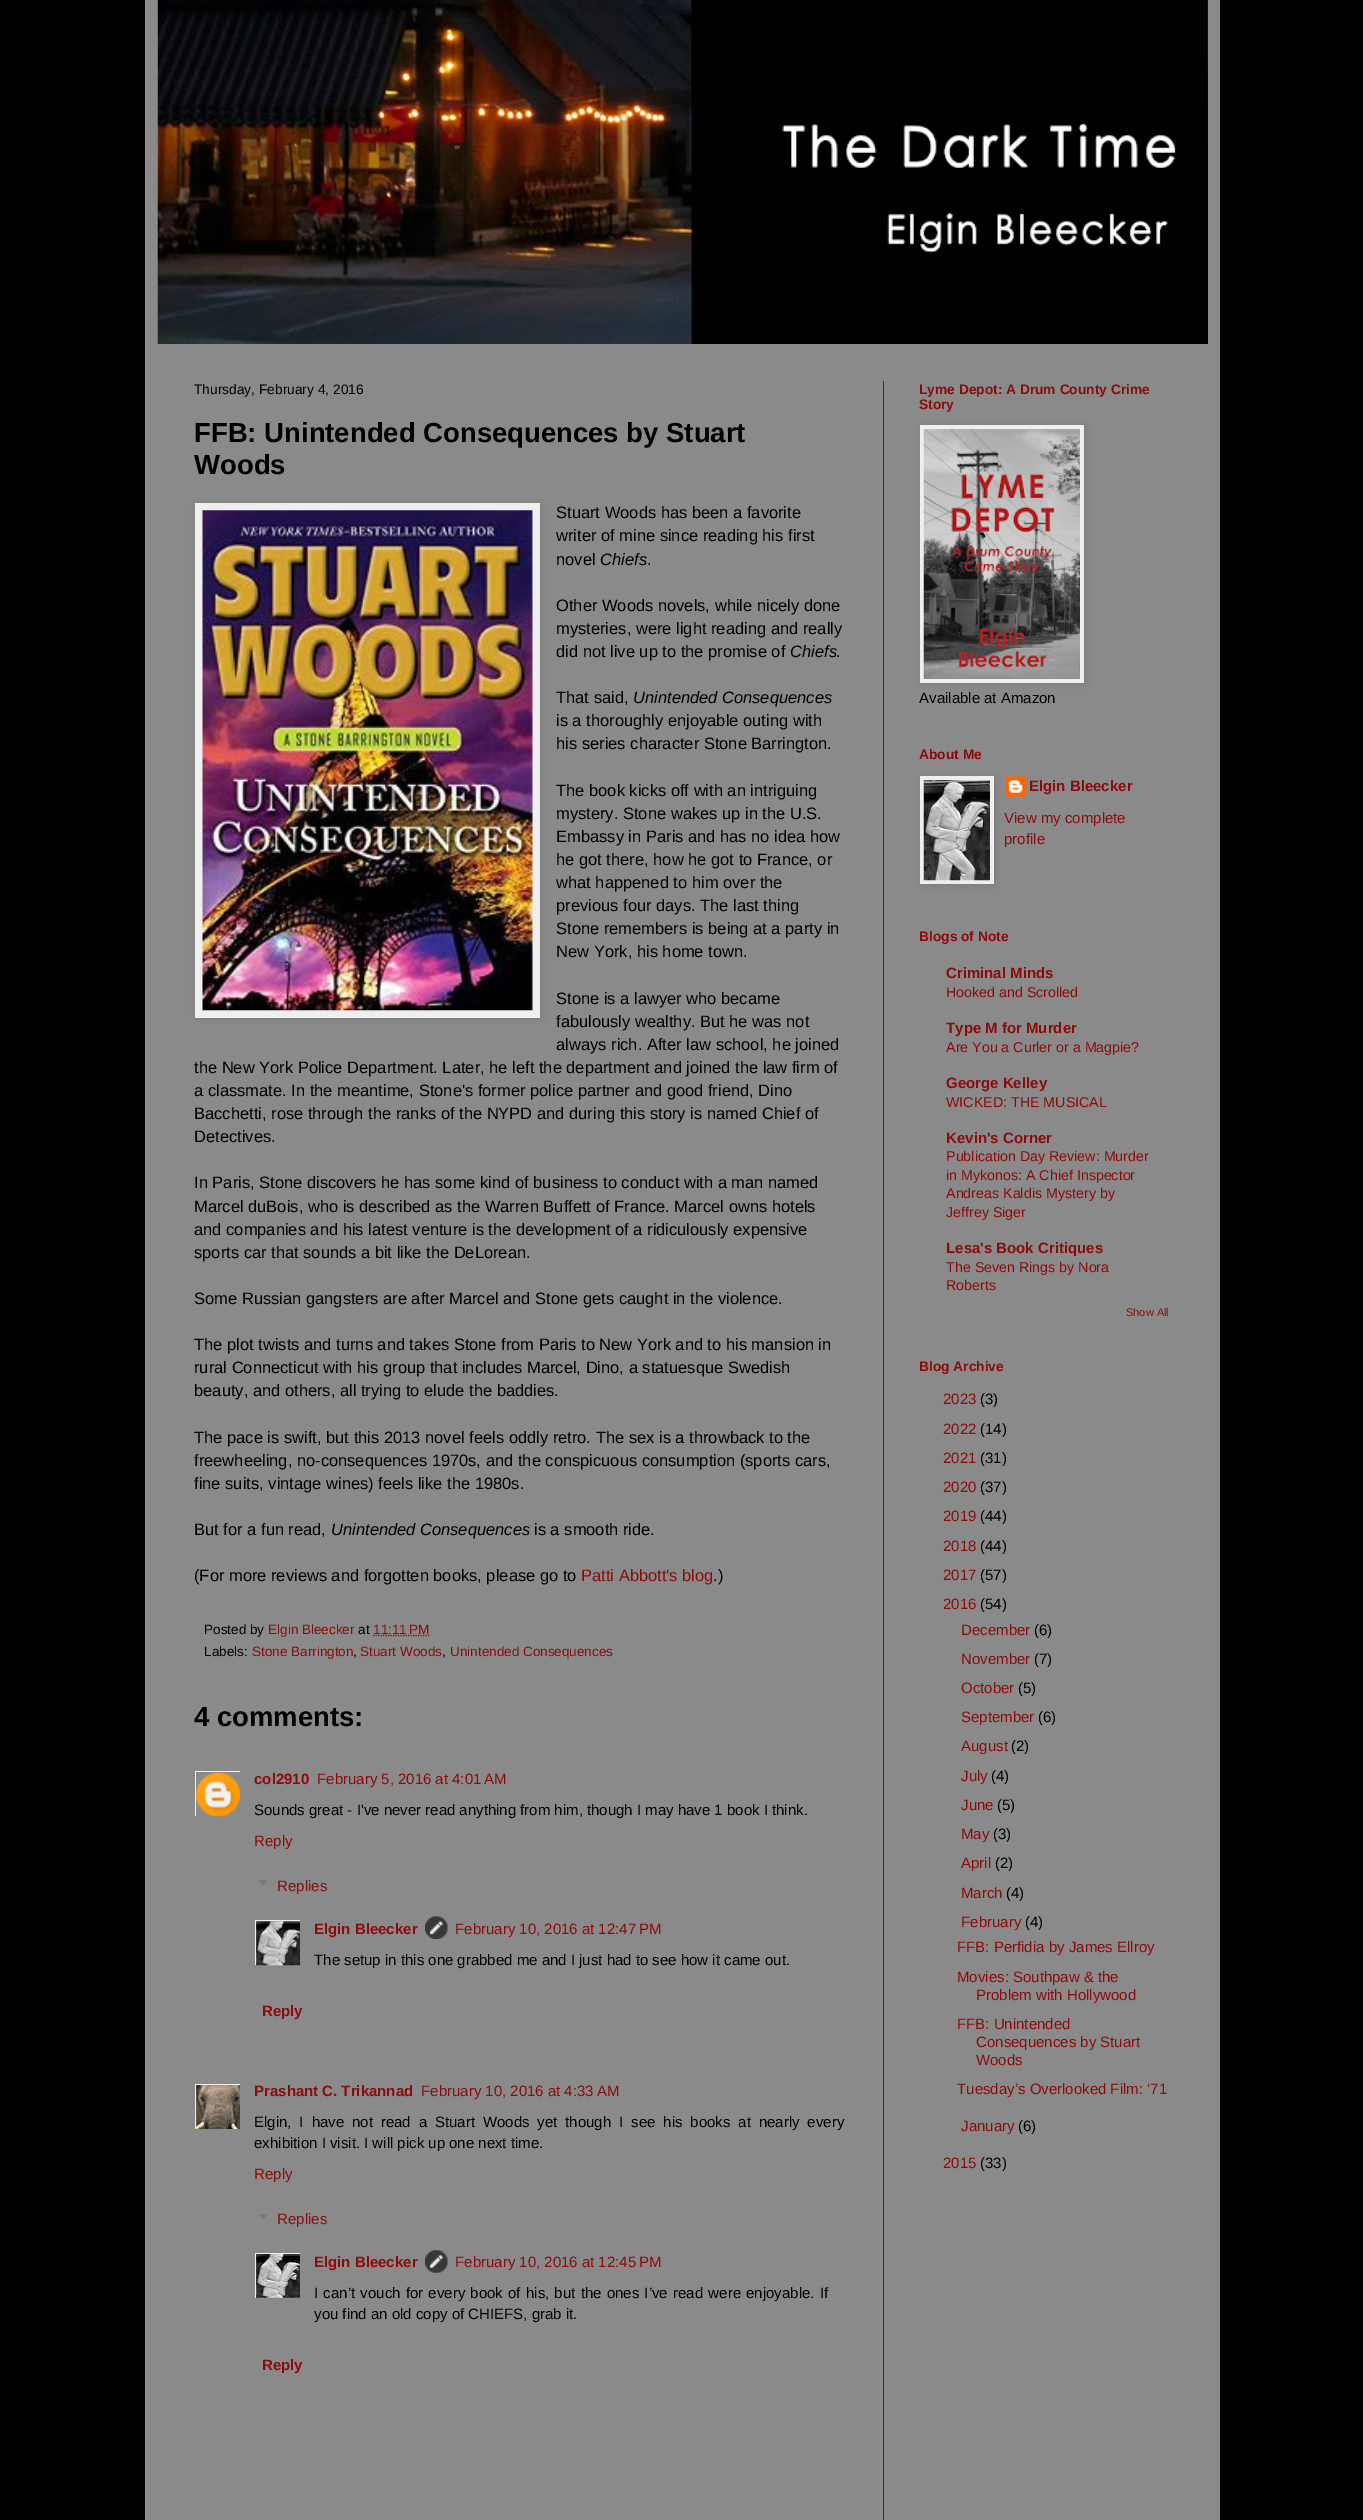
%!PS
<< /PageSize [1363 2520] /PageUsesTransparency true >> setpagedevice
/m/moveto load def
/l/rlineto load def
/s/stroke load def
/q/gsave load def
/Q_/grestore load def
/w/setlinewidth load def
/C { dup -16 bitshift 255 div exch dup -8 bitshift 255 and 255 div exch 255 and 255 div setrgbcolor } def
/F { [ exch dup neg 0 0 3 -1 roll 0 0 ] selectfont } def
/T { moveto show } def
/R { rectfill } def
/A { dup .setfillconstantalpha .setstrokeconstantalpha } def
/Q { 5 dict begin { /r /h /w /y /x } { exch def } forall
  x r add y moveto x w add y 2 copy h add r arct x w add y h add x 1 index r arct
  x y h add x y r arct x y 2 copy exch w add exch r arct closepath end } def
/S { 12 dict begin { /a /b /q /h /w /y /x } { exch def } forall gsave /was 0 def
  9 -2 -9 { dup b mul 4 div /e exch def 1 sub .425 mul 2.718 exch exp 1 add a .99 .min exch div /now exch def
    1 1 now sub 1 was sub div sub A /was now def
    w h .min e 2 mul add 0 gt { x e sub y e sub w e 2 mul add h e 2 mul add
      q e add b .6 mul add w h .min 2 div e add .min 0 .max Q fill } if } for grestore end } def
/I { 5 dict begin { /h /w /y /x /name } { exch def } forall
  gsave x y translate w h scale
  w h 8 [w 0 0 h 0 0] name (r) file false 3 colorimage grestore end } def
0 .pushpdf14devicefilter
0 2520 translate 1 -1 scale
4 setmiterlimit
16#000000 C
0 0 1363 2520 R
16#8A8A8A C
145 0 1075 2520 R
16#000000 C
1207 0 1 344 R
(1.rgb) 157 0 1051 141 I
(2.rgb) 157 0 1051 344 I
16#8C0B0B C
883 381 1 2139 R
/LiberationSans-Regular 13.75 F
16#000000 C
(Thursday, February 4, 2016) 194 394 T
/LiberationSans-Bold 27.5 F
(FFB: Unintended Consequences by Stuart) 194 442 T
(Woods) 194 474 T
196 504 345 515 0 3 .1 S
16#EFEFEF C
195 503 345 515 R
(3.rgb) 202 510 331 501 I
/LiberationSans-Regular 16.5 F
16#000000 C
(Stuart Woods has been a favorite) 556 518 T
(writer of mine since reading his first) 556 541 T
(novel) 556 565 T
/LiberationSans-Italic 16.5 F
(Chiefs) 600 565 T
/LiberationSans-Regular 16.5 F
(.) 647 565 T
(Other Woods novels, while nicely done) 556 611 T
(mysteries, were light reading and really) 556 634 T
(did not live up to the promise of) 556 657 T
/LiberationSans-Italic 16.5 F
(Chiefs) 790 657 T
/LiberationSans-Regular 16.5 F
(.) 836 657 T
(That said,) 556 703 T
/LiberationSans-Italic 16.5 F
(Unintended Consequences) 633 703 T
/LiberationSans-Regular 16.5 F
(is a thoroughly enjoyable outing with) 556 726 T
(his series character Stone Barrington.) 556 749 T
(The book kicks off with an intriguing) 556 796 T
(mystery. Stone wakes up in the U.S.) 556 819 T
(Embassy in Paris and has no idea how) 556 842 T
(he got there, how he got to France, or) 556 865 T
(what happened to him over the) 556 888 T
(previous four days. The last thing) 556 911 T
(Stone remembers is being at a party in) 556 934 T
(New York, his home town.) 556 957 T
(Stone is a lawyer who became) 556 1004 T
(fabulously wealthy. But he was not) 556 1027 T
(always rich. After law school, he joined) 556 1050 T
(the New York Police Department. Later, he left the department and joined the law firm of) 194 1073 T
(a classmate. In the meantime, Stone's former police partner and good friend, Dino) 194 1096 T
(Bacchetti, rose through the ranks of the NYPD and during this story is named Chief of) 194 1119 T
(Detectives.) 194 1142 T
(In Paris, Stone discovers he has some kind of business to conduct with a man named) 194 1188 T
(Marcel duBois, who is described as the Warren Buffett of France. Marcel owns hotels) 194 1212 T
(and companies and his latest venture is the development of a ridiculously expensive) 194 1235 T
(sports car that sounds a bit like the DeLorean.) 194 1258 T
(Some Russian gangsters are after Marcel and Stone gets caught in the violence.) 194 1304 T
(The plot twists and turns and takes Stone from Paris to New York and to his mansion in) 194 1350 T
(rural Connecticut with his group that includes Marcel, Dino, a statuesque Swedish) 194 1373 T
(beauty, and others, all trying to elude the baddies.) 194 1396 T
(The pace is swift, but this 2013 novel feels oddly retro. The sex is a throwback to the) 194 1443 T
(freewheeling, no-consequences 1970s, and the conspicuous consumption \(sports cars,) 194 1466 T
(fine suits, vintage wines\) feels like the 1980s.) 194 1489 T
(But for a fun read,) 194 1535 T
/LiberationSans-Italic 16.5 F
(Unintended Consequences) 331 1535 T
/LiberationSans-Regular 16.5 F
(is a smooth ride.) 534 1535 T
(\(For more reviews and forgotten books, please go to) 194 1581 T
16#8C0B0B C
(Patti Abbott's blog) 581 1581 T
16#000000 C
(.\)) 713 1581 T
/LiberationSans-Regular 13.5 F
(Posted by) 204 1634 T
16#8C0B0B C
(Elgin Bleecker) 268 1634 T
16#000000 C
(at) 358 1634 T
16#8C0B0B C
(11:11 PM) 373 1634 T
1.2 w
[1.25 1.25] 0 setdash
373 1635.5 m 57 0 l s
16#000000 C
(Labels:) 204 1656 T
16#8C0B0B C
(Stone Barrington) 252 1656 T
16#000000 C
(,) 353 1656 T
16#8C0B0B C
(Stuart Woods) 360 1656 T
16#000000 C
(,) 442 1656 T
16#8C0B0B C
(Unintended Consequences) 450 1656 T
/LiberationSans-Bold 27.5 F
16#000000 C
(4 comments:) 194 1726 T
q
195 1771 45 45 rectclip
16#EFEFEF C
1 w
[] 0 setdash
195.5 1771.5 45 46 rectstroke
Q_
(4.rgb) 196 1772 44 45 I
/LiberationSans-Bold 15 F
16#8C0B0B C
(col2910) 254 1784 T
/LiberationSans-Regular 15 F
(February 5, 2016 at 4:01 AM) 317 1784 T
16#000000 C
(Sounds great - I've never read anything from him, though I may have 1 book I think.) 254 1815 T
16#8C0B0B C
(Reply) 254 1846 T
(5.rgb) 259 1880 9 6 I
(Replies) 277 1891 T
q
255 1920 45 45 rectclip
16#EFEFEF C
1 w
[] 0 setdash
255.5 1920.5 47 47 rectstroke
Q_
(6.rgb) 256 1921 44 45 I
/LiberationSans-Bold 15 F
(Elgin Bleecker) 314 1934 T
(7.rgb) 425 1916 23 23 I
/LiberationSans-Regular 15 F
(February 10, 2016 at 12:47 PM) 455 1934 T
16#000000 C
(The setup in this one grabbed me and I just had to see how it came out.) 314 1965 T
/LiberationSans-Bold 15 F
16#8C0B0B C
(Reply) 262 2016 T
q
195 2084 45 45 rectclip
16#EFEFEF C
1 w
[] 0 setdash
195.5 2084.5 47 46 rectstroke
Q_
(8.rgb) 196 2085 44 44 I
(Prashant C. Trikannad) 254 2096 T
/LiberationSans-Regular 15 F
(February 10, 2016 at 4:33 AM) 421 2096 T
16#000000 C
254 2127 m 3.75 0 32 (Elgin, I have not read a Stuart Woods yet though I see his books at nearly every) widthshow
(exhibition I visit. I will pick up one next time.) 254 2148 T
16#8C0B0B C
(Reply) 254 2179 T
(9.rgb) 258 2214 10 5 I
(Replies) 277 2224 T
q
255 2253 45 45 rectclip
16#EFEFEF C
1 w
[] 0 setdash
255.5 2253.5 47 46 rectstroke
Q_
(10.rgb) 256 2254 44 44 I
/LiberationSans-Bold 15 F
(Elgin Bleecker) 314 2267 T
(11.rgb) 425 2250 23 23 I
/LiberationSans-Regular 15 F
(February 10, 2016 at 12:45 PM) 455 2267 T
16#000000 C
314 2298 m 1.1 0 32 (I can’t vouch for every book of his, but the ones I’ve read were enjoyable. If) widthshow
(you find an old copy of CHIEFS, grab it.) 314 2319 T
/LiberationSans-Bold 15 F
16#8C0B0B C
(Reply) 262 2370 T
/LiberationSans-Bold 13.75 F
(Lyme Depot: A Drum County Crime) 919 394 T
(Story) 919 409 T
16#000000 C
921 426 164 258 0 3 .1 S
16#EFEFEF C
920 425 164 258 R
(12.rgb) 923 429 157 250 I
/LiberationSans-Regular 15 F
16#000000 C
(Available at Amazon) 919 703 T
/LiberationSans-Bold 13.75 F
16#8C0B0B C
(About Me) 919 759 T
16#000000 C
921 778 74 107 0 3 .1 S
16#EFEFEF C
920 776 74 108 R
(13.rgb) 923 780 67 101 I
(14.rgb) 1005 776 22 21 I
/LiberationSans-Bold 15 F
16#8C0B0B C
(Elgin Bleecker) 1029 791 T
/LiberationSans-Regular 15 F
(View my complete) 1004 823 T
(profile) 1004 844 T
/LiberationSans-Bold 13.75 F
(Blogs of Note) 919 941 T
/LiberationSans-Bold 15 F
(Criminal Minds) 946 978 T
/LiberationSans-Regular 14.25 F
(Hooked and Scrolled) 946 997 T
/LiberationSans-Bold 15 F
(Type M for Murder) 946 1033 T
/LiberationSans-Regular 14.25 F
(Are You a Curler or a Magpie?) 946 1052 T
/LiberationSans-Bold 15 F
(George Kelley) 946 1088 T
/LiberationSans-Regular 14.25 F
(WICKED: THE MUSICAL) 946 1107 T
/LiberationSans-Bold 15 F
(Kevin's Corner) 946 1143 T
/LiberationSans-Regular 14.25 F
(Publication Day Review: Murder) 946 1161 T
(in Mykonos: A Chief Inspector) 946 1180 T
(Andreas Kaldis Mystery by) 946 1198 T
(Jeffrey Siger) 946 1217 T
/LiberationSans-Bold 15 F
(Lesa's Book Critiques) 946 1253 T
/LiberationSans-Regular 14.25 F
(The Seven Rings by Nora) 946 1272 T
(Roberts) 946 1290 T
/LiberationSans-Regular 11 F
(Show All) 1126 1316 T
/LiberationSans-Bold 13.75 F
(Blog Archive) 919 1371 T
/LiberationSans-Regular 15 F
(2023) 943 1404 T
16#000000 C
(\(3\)) 980 1404 T
16#8C0B0B C
(2022) 943 1434 T
16#000000 C
(\(14\)) 980 1434 T
16#8C0B0B C
(2021) 943 1463 T
16#000000 C
(\(31\)) 980 1463 T
16#8C0B0B C
(2020) 943 1492 T
16#000000 C
(\(37\)) 980 1492 T
16#8C0B0B C
(2019) 943 1521 T
16#000000 C
(\(44\)) 980 1521 T
16#8C0B0B C
(2018) 943 1551 T
16#000000 C
(\(44\)) 980 1551 T
16#8C0B0B C
(2017) 943 1580 T
16#000000 C
(\(57\)) 980 1580 T
16#8C0B0B C
(2016) 943 1609 T
16#000000 C
(\(54\)) 980 1609 T
16#8C0B0B C
(December) 961 1635 T
16#000000 C
(\(6\)) 1034 1635 T
16#8C0B0B C
(November) 961 1664 T
16#000000 C
(\(7\)) 1034 1664 T
16#8C0B0B C
(October) 961 1693 T
16#000000 C
(\(5\)) 1018 1693 T
16#8C0B0B C
(September) 961 1722 T
16#000000 C
(\(6\)) 1038 1722 T
16#8C0B0B C
(August) 961 1751 T
16#000000 C
(\(2\)) 1011 1751 T
16#8C0B0B C
(July) 961 1781 T
16#000000 C
(\(4\)) 991 1781 T
16#8C0B0B C
(June) 961 1810 T
16#000000 C
(\(5\)) 997 1810 T
16#8C0B0B C
(May) 961 1839 T
16#000000 C
(\(3\)) 993 1839 T
16#8C0B0B C
(April) 961 1868 T
16#000000 C
(\(2\)) 995 1868 T
16#8C0B0B C
(March) 961 1898 T
16#000000 C
(\(4\)) 1006 1898 T
16#8C0B0B C
(February) 961 1927 T
16#000000 C
(\(4\)) 1025 1927 T
16#8C0B0B C
(FFB: Perfidia by James Ellroy) 957 1952 T
(Movies: Southpaw & the) 957 1982 T
(Problem with Hollywood) 976 2000 T
(FFB: Unintended) 957 2029 T
(Consequences by Stuart) 976 2047 T
(Woods) 976 2065 T
(Tuesday’s Overlooked Film: ‘71) 957 2094 T
(January) 961 2131 T
16#000000 C
(\(6\)) 1018 2131 T
16#8C0B0B C
(2015) 943 2168 T
16#000000 C
(\(33\)) 980 2168 T
.poppdf14devicefilter showpage
